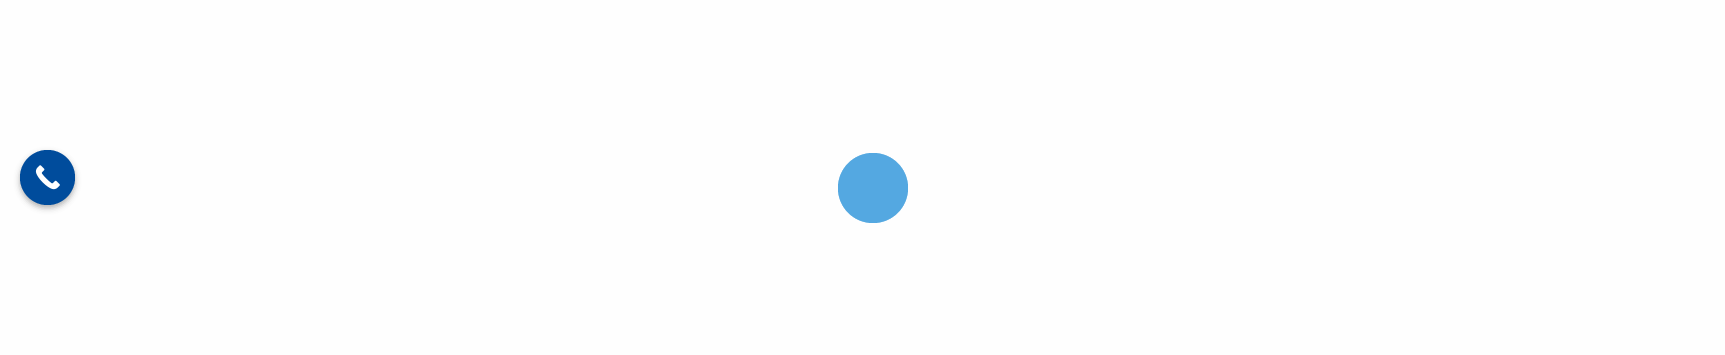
%!PS
<< /PageSize [1725 355] /PageUsesTransparency true >> setpagedevice
/f/fill load def
/C { dup -16 bitshift 255 div exch dup -8 bitshift 255 and 255 div exch 255 and 255 div setrgbcolor } def
/R { rectfill } def
/A { dup .setfillconstantalpha .setstrokeconstantalpha } def
/O { newpath 0 360 arc closepath } def
/Q { 5 dict begin { /r /h /w /y /x } { exch def } forall
  x r add y moveto x w add y 2 copy h add r arct x w add y h add x 1 index r arct
  x y h add x y r arct x y 2 copy exch w add exch r arct closepath end } def
/S { 12 dict begin { /a /b /q /h /w /y /x } { exch def } forall gsave /was 0 def
  9 -2 -9 { dup b mul 4 div /e exch def 1 sub .425 mul 2.718 exch exp 1 add a .99 .min exch div /now exch def
    1 1 now sub 1 was sub div sub A /was now def
    w h .min e 2 mul add 0 gt { x e sub y e sub w e 2 mul add h e 2 mul add
      q e add b .6 mul add w h .min 2 div e add .min 0 .max Q fill } if } for grestore end } def
/I { 5 dict begin { /h /w /y /x /name } { exch def } forall
  gsave x y translate w h scale
  w h 8 [w 0 0 h 0 0] name (r) file false 3 colorimage grestore end } def
0 .pushpdf14devicefilter
0 355 translate 1 -1 scale
4 setmiterlimit
16#FEFEFE C
0 0 1725 355 R
16#000000 C
20 153 55 55 27.5 3 .3 S
16#004C9C C
47.5 177.5 27.5 O f
(1.rgb) 35 165 25 25 I
16#85C1E9 C
873 188 35 O f
0.6 A
16#3498DB C
873 188 35 O f
.poppdf14devicefilter showpage
